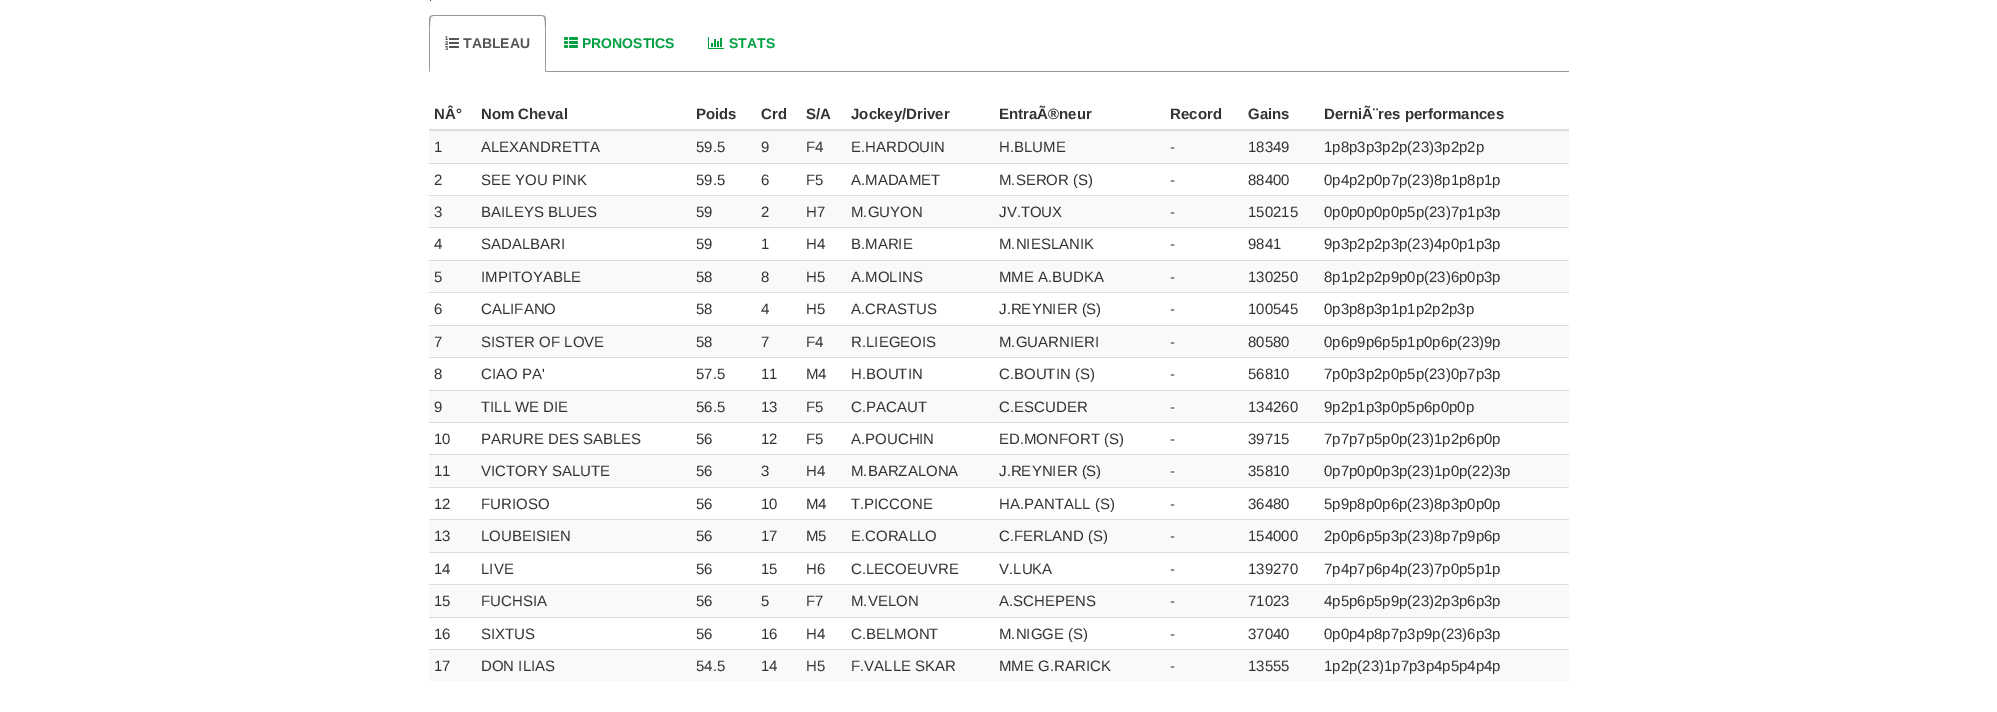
%!PS
<< /PageSize [1997 712] >> setpagedevice
/m/moveto load def
/l/rlineto load def
/c/rcurveto load def
/z/closepath load def
/f/fill load def
/C { dup -16 bitshift 255 div exch dup -8 bitshift 255 and 255 div exch 255 and 255 div setrgbcolor } def
/F { [ exch dup neg 0 0 3 -1 roll 0 0 ] selectfont } def
/T { moveto show } def
/R { rectfill } def
/I { 5 dict begin { /h /w /y /x /name } { exch def } forall
  gsave x y translate w h scale
  w h 8 [w 0 0 h 0 0] name (r) file false 3 colorimage grestore end } def
0 712 translate 1 -1 scale
4 setmiterlimit
16#FFFFFF C
0 0 1997 712 R
16#3B3B3B C
430 0 1 1 R
16#999999 C
546 71 1023 1 R
433 15 m -3 1 l 1 1 l 2 -1 l 109 0 l 2 1 l 1 -1 l -3 -1 l z f
546 72 m 0 -53 l -1 -3 l -1 1 l 2 2 1 48 1 54 c z f
429 72 m 1 -1 l 0 -6 -1 -52 1 -54 c -1 -1 l -1 3 l z f
(1.rgb) 445 36 14 14 I
/LiberationSans-Bold 14 F
16#555555 C
(TABLEAU) 463 48 T
(2.rgb) 564 37 14 11 I
16#00A040 C
(PRONOSTICS) 582 48 T
(3.rgb) 708 37 16 12 I
(STATS) 729 48 T
/LiberationSans-Bold 15 F
16#333333 C
(NÂ°) 434 119 T
(Nom Cheval) 481 119 T
(Poids) 696 119 T
(Crd) 761 119 T
(S/A) 806 119 T
(Jockey/Driver) 851 119 T
(EntraÃ®neur) 999 119 T
(Record) 1170 119 T
(Gains) 1248 119 T
16#DDDDDD C
429 129 1140 2 R
16#333333 C
(DerniÃ¨res performances) 1324 119 T
16#F9F9F9 C
429 131 1140 32 R
/LiberationSans-Regular 15 F
16#333333 C
(1) 434 152 T
(ALEXANDRETTA) 481 152 T
(59.5) 696 152 T
(9) 761 152 T
(F4) 806 152 T
(E.HARDOUIN) 851 152 T
(H.BLUME) 999 152 T
(-) 1170 152 T
(18349) 1248 152 T
(1p8p3p3p2p\(23\)3p2p2p) 1324 152 T
(2) 434 185 T
(SEE YOU PINK) 481 185 T
(59.5) 696 185 T
(6) 761 185 T
(F5) 806 185 T
(A.MADAMET) 851 185 T
(M.SEROR \(S\)) 999 185 T
(-) 1170 185 T
(88400) 1248 185 T
16#DDDDDD C
429 163 1140 1 R
16#333333 C
(0p4p2p0p7p\(23\)8p1p8p1p) 1324 185 T
16#F9F9F9 C
429 196 1140 31 R
16#333333 C
(3) 434 217 T
(BAILEYS BLUES) 481 217 T
(59) 696 217 T
(2) 761 217 T
(H7) 806 217 T
(M.GUYON) 851 217 T
(JV.TOUX) 999 217 T
(-) 1170 217 T
(150215) 1248 217 T
16#DDDDDD C
429 195 1140 1 R
16#333333 C
(0p0p0p0p0p5p\(23\)7p1p3p) 1324 217 T
(4) 434 249 T
(SADALBARI) 481 249 T
(59) 696 249 T
(1) 761 249 T
(H4) 806 249 T
(B.MARIE) 851 249 T
(M.NIESLANIK) 999 249 T
(-) 1170 249 T
(9841) 1248 249 T
16#DDDDDD C
429 227 1140 1 R
16#333333 C
(9p3p2p2p3p\(23\)4p0p1p3p) 1324 249 T
16#F9F9F9 C
429 261 1140 31 R
16#333333 C
(5) 434 282 T
(IMPITOYABLE) 481 282 T
(58) 696 282 T
(8) 761 282 T
(H5) 806 282 T
(A.MOLINS) 851 282 T
(MME A.BUDKA) 999 282 T
(-) 1170 282 T
(130250) 1248 282 T
16#DDDDDD C
429 260 1140 1 R
16#333333 C
(8p1p2p2p9p0p\(23\)6p0p3p) 1324 282 T
(6) 434 314 T
(CALIFANO) 481 314 T
(58) 696 314 T
(4) 761 314 T
(H5) 806 314 T
(A.CRASTUS) 851 314 T
(J.REYNIER \(S\)) 999 314 T
(-) 1170 314 T
(100545) 1248 314 T
16#DDDDDD C
429 292 1140 1 R
16#333333 C
(0p3p8p3p1p1p2p2p3p) 1324 314 T
16#F9F9F9 C
429 326 1140 31 R
16#333333 C
(7) 434 347 T
(SISTER OF LOVE) 481 347 T
(58) 696 347 T
(7) 761 347 T
(F4) 806 347 T
(R.LIEGEOIS) 851 347 T
(M.GUARNIERI) 999 347 T
(-) 1170 347 T
(80580) 1248 347 T
16#DDDDDD C
429 325 1140 1 R
16#333333 C
(0p6p9p6p5p1p0p6p\(23\)9p) 1324 347 T
(8) 434 379 T
(CIAO PA') 481 379 T
(57.5) 696 379 T
(11) 761 379 T
(M4) 806 379 T
(H.BOUTIN) 851 379 T
(C.BOUTIN \(S\)) 999 379 T
(-) 1170 379 T
(56810) 1248 379 T
16#DDDDDD C
429 357 1140 1 R
16#333333 C
(7p0p3p2p0p5p\(23\)0p7p3p) 1324 379 T
16#F9F9F9 C
429 391 1140 31 R
16#333333 C
(9) 434 412 T
(TILL WE DIE) 481 412 T
(56.5) 696 412 T
(13) 761 412 T
(F5) 806 412 T
(C.PACAUT) 851 412 T
(C.ESCUDER) 999 412 T
(-) 1170 412 T
(134260) 1248 412 T
16#DDDDDD C
429 390 1140 1 R
16#333333 C
(9p2p1p3p0p5p6p0p0p) 1324 412 T
(10) 434 444 T
(PARURE DES SABLES) 481 444 T
(56) 696 444 T
(12) 761 444 T
(F5) 806 444 T
(A.POUCHIN) 851 444 T
(ED.MONFORT \(S\)) 999 444 T
(-) 1170 444 T
(39715) 1248 444 T
16#DDDDDD C
429 422 1140 1 R
16#333333 C
(7p7p7p5p0p\(23\)1p2p6p0p) 1324 444 T
16#F9F9F9 C
429 455 1140 32 R
16#333333 C
(11) 434 476 T
(VICTORY SALUTE) 481 476 T
(56) 696 476 T
(3) 761 476 T
(H4) 806 476 T
(M.BARZALONA) 851 476 T
(J.REYNIER \(S\)) 999 476 T
(-) 1170 476 T
(35810) 1248 476 T
16#DDDDDD C
429 454 1140 1 R
16#333333 C
(0p7p0p0p3p\(23\)1p0p\(22\)3p) 1324 476 T
(12) 434 509 T
(FURIOSO) 481 509 T
(56) 696 509 T
(10) 761 509 T
(M4) 806 509 T
(T.PICCONE) 851 509 T
(HA.PANTALL \(S\)) 999 509 T
(-) 1170 509 T
(36480) 1248 509 T
16#DDDDDD C
429 487 1140 1 R
16#333333 C
(5p9p8p0p6p\(23\)8p3p0p0p) 1324 509 T
16#F9F9F9 C
429 520 1140 32 R
16#333333 C
(13) 434 541 T
(LOUBEISIEN) 481 541 T
(56) 696 541 T
(17) 761 541 T
(M5) 806 541 T
(E.CORALLO) 851 541 T
(C.FERLAND \(S\)) 999 541 T
(-) 1170 541 T
(154000) 1248 541 T
16#DDDDDD C
429 519 1140 1 R
16#333333 C
(2p0p6p5p3p\(23\)8p7p9p6p) 1324 541 T
(14) 434 574 T
(LIVE) 481 574 T
(56) 696 574 T
(15) 761 574 T
(H6) 806 574 T
(C.LECOEUVRE) 851 574 T
(V.LUKA) 999 574 T
(-) 1170 574 T
(139270) 1248 574 T
16#DDDDDD C
429 552 1140 1 R
16#333333 C
(7p4p7p6p4p\(23\)7p0p5p1p) 1324 574 T
16#F9F9F9 C
429 585 1140 32 R
16#333333 C
(15) 434 606 T
(FUCHSIA) 481 606 T
(56) 696 606 T
(5) 761 606 T
(F7) 806 606 T
(M.VELON) 851 606 T
(A.SCHEPENS) 999 606 T
(-) 1170 606 T
(71023) 1248 606 T
16#DDDDDD C
429 584 1140 1 R
16#333333 C
(4p5p6p5p9p\(23\)2p3p6p3p) 1324 606 T
(16) 434 639 T
(SIXTUS) 481 639 T
(56) 696 639 T
(16) 761 639 T
(H4) 806 639 T
(C.BELMONT) 851 639 T
(M.NIGGE \(S\)) 999 639 T
(-) 1170 639 T
(37040) 1248 639 T
16#DDDDDD C
429 617 1140 1 R
16#333333 C
(0p0p4p8p7p3p9p\(23\)6p3p) 1324 639 T
16#F9F9F9 C
429 650 1140 31 R
16#333333 C
(17) 434 671 T
(DON ILIAS) 481 671 T
(54.5) 696 671 T
(14) 761 671 T
(H5) 806 671 T
(F.VALLE SKAR) 851 671 T
(MME G.RARICK) 999 671 T
(-) 1170 671 T
(13555) 1248 671 T
16#DDDDDD C
429 649 1140 1 R
16#333333 C
(1p2p\(23\)1p7p3p4p5p4p4p) 1324 671 T
showpage
